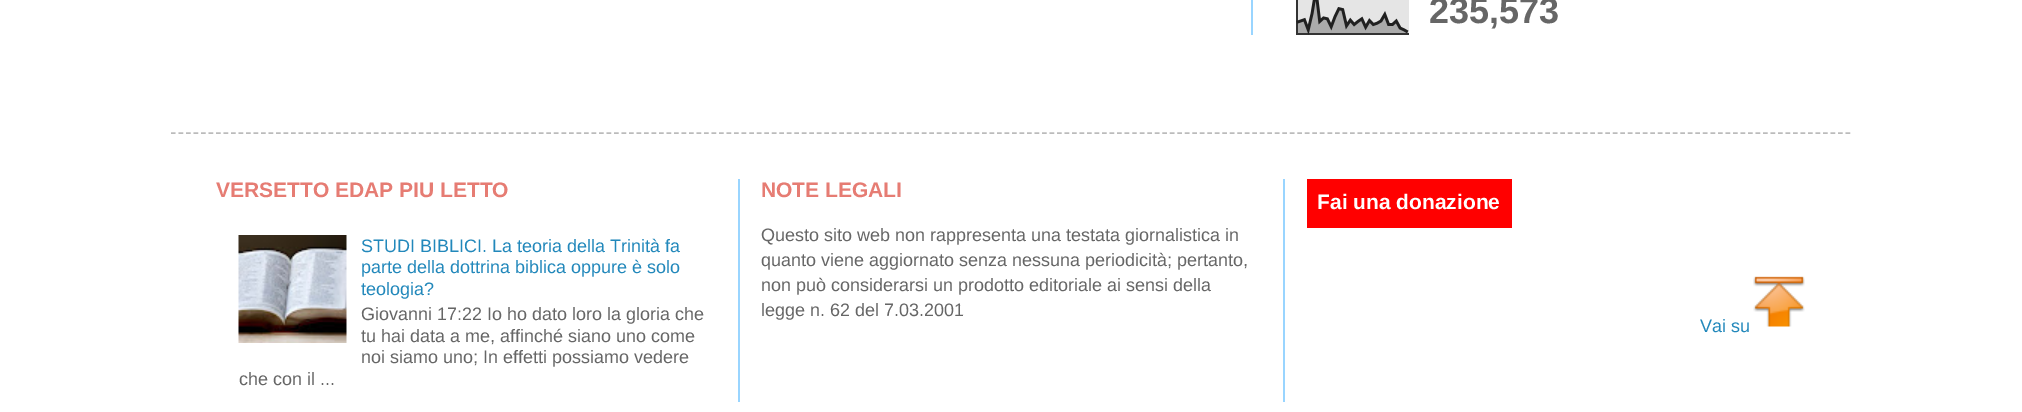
%!PS
<< /PageSize [2022 412] >> setpagedevice
/m/moveto load def
/l/rlineto load def
/s/stroke load def
/w/setlinewidth load def
/C { dup -16 bitshift 255 div exch dup -8 bitshift 255 and 255 div exch 255 and 255 div setrgbcolor } def
/F { [ exch dup neg 0 0 3 -1 roll 0 0 ] selectfont } def
/T { moveto show } def
/R { rectfill } def
/I { 5 dict begin { /h /w /y /x /name } { exch def } forall
  gsave x y translate w h scale
  w h 8 [w 0 0 h 0 0] name (r) file false 3 colorimage grestore end } def
0 412 translate 1 -1 scale
4 setmiterlimit
16#FFFFFF C
0 0 2022 412 R
16#99D5FF C
1251 0 2 35 R
(1.rgb) 1296 0 113 35 I
/LiberationSans-Bold 36 F
16#666666 C
(235,573) 1429 23 T
16#BBBBBB C
1.5 w
[4.5 3.01] 0 setdash
171 133 m 1680 0 l s
/LiberationSans-Bold 21 F
16#E67C73 C
(VERSETTO EDAP PIU LETTO) 216 197 T
(2.rgb) 238 235 109 108 I
/LiberationSans-Regular 18 F
16#2288BB C
(STUDI BIBLICI. La teoria della Trinità fa) 361 252 T
(parte della dottrina biblica oppure è solo) 361 273 T
(teologia?) 361 295 T
16#666666 C
(Giovanni 17:22 Io ho dato loro la gloria che) 361 320 T
(tu hai data a me, affinché siano uno come) 361 342 T
(noi siamo uno; In effetti possiamo vedere) 361 363 T
(che con il ...) 239 385 T
16#99D5FF C
738 179 2 223 R
/LiberationSans-Bold 21 F
16#E67C73 C
(NOTE LEGALI) 761 197 T
/LiberationSans-Regular 18 F
16#666666 C
(Questo sito web non rappresenta una testata giornalistica in) 761 241 T
(quanto viene aggiornato senza nessuna periodicità; pertanto,) 761 266 T
(non può considerarsi un prodotto editoriale ai sensi della) 761 291 T
(legge n. 62 del 7.03.2001) 761 316 T
16#99D5FF C
1283 179 2 223 R
16#FF0000 C
1307 179 205 49 R
/LiberationSans-Bold 21 F
16#FFFFFF C
(Fai una donazione) 1317 209 T
/LiberationSans-Regular 18 F
16#2288BB C
(Vai su) 1700 332 T
(3.rgb) 1753 276 52 51 I
showpage
